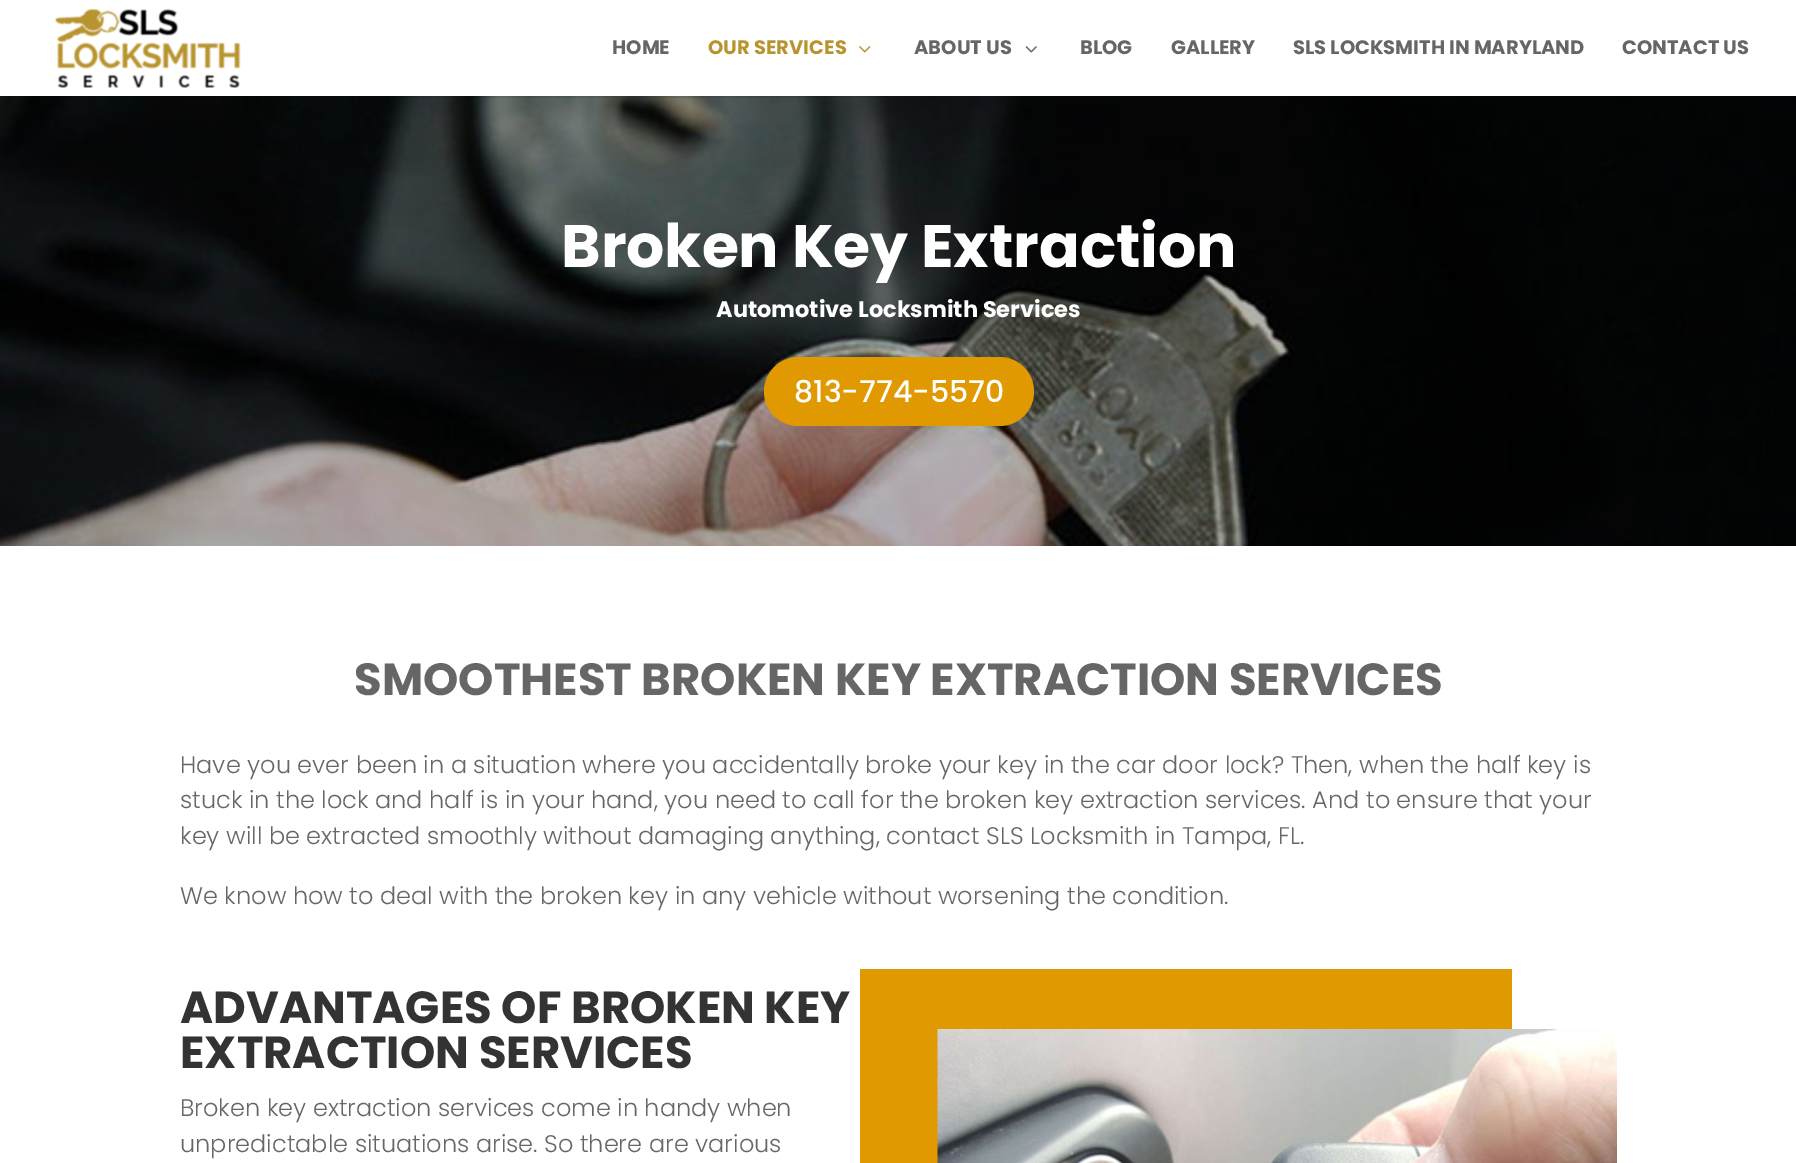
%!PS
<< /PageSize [1796 1163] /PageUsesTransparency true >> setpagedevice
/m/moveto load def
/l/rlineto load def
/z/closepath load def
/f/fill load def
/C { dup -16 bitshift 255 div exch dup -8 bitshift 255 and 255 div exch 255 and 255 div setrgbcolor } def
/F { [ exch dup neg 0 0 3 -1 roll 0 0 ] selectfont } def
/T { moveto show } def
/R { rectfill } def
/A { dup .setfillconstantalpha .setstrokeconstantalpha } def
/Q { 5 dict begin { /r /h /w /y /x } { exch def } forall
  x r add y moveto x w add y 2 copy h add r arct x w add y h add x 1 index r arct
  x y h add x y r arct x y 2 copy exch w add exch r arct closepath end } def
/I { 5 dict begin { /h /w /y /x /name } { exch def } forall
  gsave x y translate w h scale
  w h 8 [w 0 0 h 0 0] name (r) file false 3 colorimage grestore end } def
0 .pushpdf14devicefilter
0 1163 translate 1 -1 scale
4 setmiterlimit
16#FFFFFF C
0 0 1796 1163 R
(4.rgb) 0 96 1796 450 I
0.1 A
16#000000 C
402 96 486 2 R
1 A
(1.rgb) 55 8 186 80 I
/Poppins-Bold 19.5 F
16#666666 C
(HOME) 612 54 T
16#B7942F C
(OUR SERVICES) 708 54 T
(2.rgb) 859 46 12 7 I
16#666666 C
(ABOUT US) 914 54 T
(3.rgb) 1025 46 12 7 I
(BLOG) 1080 54 T
(GALLERY) 1171 54 T
(SLS LOCKSMITH IN MARYLAND) 1293 54 T
(CONTACT US) 1622 54 T
/Poppins-Bold 60 F
16#FFFFFF C
(Broken Key Extraction) 561 267 T
/Poppins-Bold 22.5 F
(Automotive Locksmith Services) 716 317 T
16#E09900 C
764 357 270 69 34.5 Q f
/Poppins-Medium 30 F
16#FFFFFF C
(813-774-5570) 794 402 T
/Poppins-Bold 45 F
16#666666 C
(SMOOTHEST BROKEN KEY EXTRACTION SERVICES) 354 695 T
/Poppins-Light 24 F
(Have you ever been in a situation where you accidentally broke your key in the car door lock? Then, when the half key is) 180 773 T
(stuck in the lock and half is in your hand, you need to call for the broken key extraction services. And to ensure that your) 180 808 T
(key will be extracted smoothly without damaging anything, contact SLS Locksmith in Tampa, FL.) 180 844 T
(We know how to deal with the broken key in any vehicle without worsening the condition.) 180 904 T
/Poppins-Bold 45 F
16#333333 C
(ADVANTAGES OF BROKEN KEY) 180 1023 T
(EXTRACTION SERVICES) 180 1068 T
/Poppins-Light 24 F
16#666666 C
(Broken key extraction services come in handy when) 180 1116 T
(unpredictable situations arise. So there are various) 180 1152 T
16#E09900 C
860 969 m 0 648 l 78 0 l 0 -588 l 574 0 l 0 -60 l z f
(5.rgb) 937 1029 680 134 I
.poppdf14devicefilter showpage
